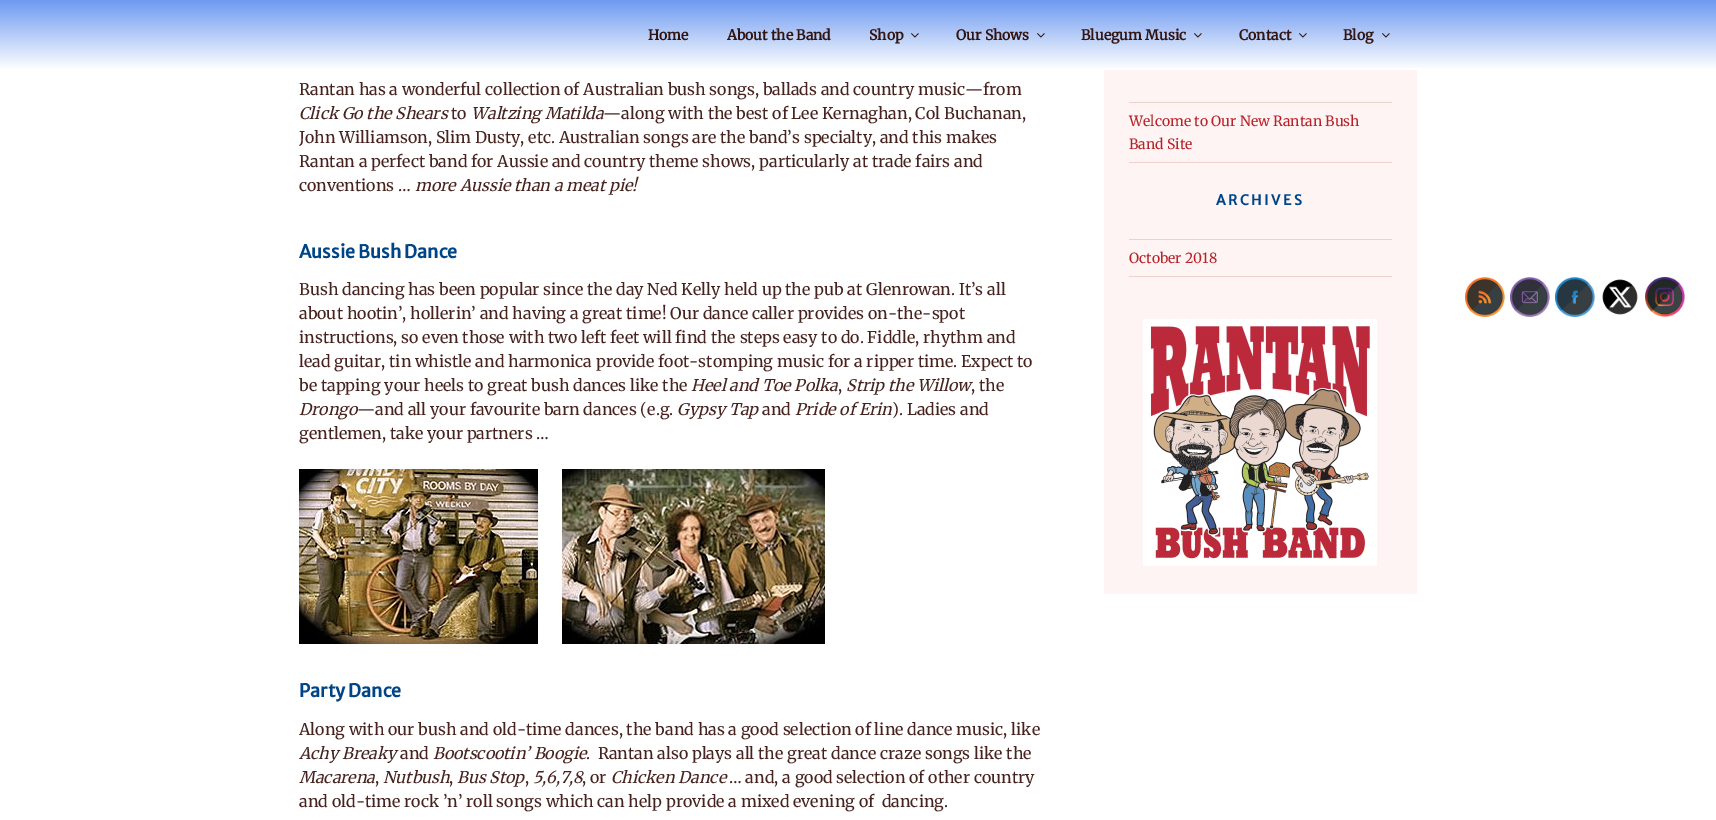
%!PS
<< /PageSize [1716 820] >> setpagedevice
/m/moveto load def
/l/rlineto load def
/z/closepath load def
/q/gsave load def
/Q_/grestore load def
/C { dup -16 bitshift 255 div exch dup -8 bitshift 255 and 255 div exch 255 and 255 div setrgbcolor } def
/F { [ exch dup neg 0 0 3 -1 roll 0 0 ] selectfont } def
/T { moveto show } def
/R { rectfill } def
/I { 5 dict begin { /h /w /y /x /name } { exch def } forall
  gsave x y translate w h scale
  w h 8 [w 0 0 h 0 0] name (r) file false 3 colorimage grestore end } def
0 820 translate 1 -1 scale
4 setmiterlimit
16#FFFFFF C
0 0 1716 820 R
q 0 0 m 1716 0 l 0 69 l -1716 0 l z clip newpath
<< /ShadingType 2 /ColorSpace /DeviceRGB /Coords [858 0 858 70] /Extend [true true] /Function << /FunctionType 2 /Domain [0 1] /C0 [.427 .6 .941] /C1 [1 1 1] /N 1 >> >> shfill Q_
/Merriweather-Bold 14 F
16#321411 C
(Home) 648 40 T
(About the Band) 727 40 T
(Shop) 869 40 T
(1.rgb) 911 33 8 5 I
(Our Shows) 956 40 T
(1.rgb) 1037 33 8 5 I
(Bluegum Music) 1081 40 T
(1.rgb) 1194 33 8 5 I
(Contact) 1239 40 T
(1.rgb) 1299 33 8 5 I
(Blog) 1343 40 T
(1.rgb) 1382 33 8 5 I
/Merriweather-Light 16 F
16#47231F C
(Rantan has a wonderful collection of Australian bush songs, ballads and country music—from) 299 95 T
/Merriweather-LightItalic 16 F
(Click Go the Shears) 299 119 T
/Merriweather-Light 16 F
(to) 451 119 T
/Merriweather-LightItalic 16 F
(Waltzing Matilda) 471 119 T
/Merriweather-Light 16 F
(—along with the best of Lee Kernaghan, Col Buchanan,) 603 119 T
(John Williamson, Slim Dusty, etc. Australian songs are the band’s specialty, and this makes) 299 143 T
(Rantan a perfect band for Aussie and country theme shows, particularly at trade fairs and) 299 167 T
(conventions …) 299 191 T
/Merriweather-LightItalic 16 F
(more Aussie than a meat pie!) 415 191 T
/MerriweatherSans-Bold 18 F
16#004488 C
(Aussie Bush Dance) 299 258 T
/Merriweather-Light 16 F
16#47231F C
(Bush dancing has been popular since the day Ned Kelly held up the pub at Glenrowan. It’s all) 299 295 T
(about hootin’, hollerin’ and having a great time! Our dance caller provides on-the-spot) 299 319 T
(instructions, so even those with two left feet will find the steps easy to do. Fiddle, rhythm and) 299 343 T
(lead guitar, tin whistle and harmonica provide foot-stomping music for a ripper time. Expect to) 299 367 T
(be tapping your heels to great bush dances like the) 299 391 T
/Merriweather-LightItalic 16 F
(Heel and Toe Polka) 691 391 T
/Merriweather-Light 16 F
(,) 838 391 T
/Merriweather-LightItalic 16 F
(Strip the Willow) 846 391 T
/Merriweather-Light 16 F
(, the) 971 391 T
/Merriweather-LightItalic 16 F
(Drongo) 299 415 T
/Merriweather-Light 16 F
(—and all your favourite barn dances \(e.g.) 357 415 T
/Merriweather-LightItalic 16 F
(Gypsy Tap) 677 415 T
/Merriweather-Light 16 F
(and) 762 415 T
/Merriweather-LightItalic 16 F
(Pride of Erin) 795 415 T
/Merriweather-Light 16 F
(\). Ladies and) 892 415 T
(gentlemen, take your partners …) 299 439 T
(2.rgb) 299 469 239 175 I
(3.rgb) 562 469 263 175 I
/MerriweatherSans-Bold 18 F
16#004488 C
(Party Dance) 299 697 T
/Merriweather-Light 16 F
16#47231F C
(Along with our bush and old-time dances, the band has a good selection of line dance music, like) 299 735 T
/Merriweather-LightItalic 16 F
(Achy Breaky) 299 759 T
/Merriweather-Light 16 F
(and) 400 759 T
/Merriweather-LightItalic 16 F
(Bootscootin’ Boogie) 433 759 T
/Merriweather-Light 16 F
(.  Rantan also plays all the great dance craze songs like the) 586 759 T
/Merriweather-LightItalic 16 F
(Macarena) 299 783 T
/Merriweather-Light 16 F
(,) 375 783 T
/Merriweather-LightItalic 16 F
(Nutbush) 383 783 T
/Merriweather-Light 16 F
(,) 449 783 T
/Merriweather-LightItalic 16 F
(Bus Stop) 457 783 T
/Merriweather-Light 16 F
(,) 525 783 T
/Merriweather-LightItalic 16 F
(5,6,7,8) 533 783 T
/Merriweather-Light 16 F
(, or) 582 783 T
/Merriweather-LightItalic 16 F
(Chicken Dance) 611 783 T
/Merriweather-Light 16 F
(… and, a good selection of other country) 729 783 T
(and old-time rock ’n’ roll songs which can help provide a mixed evening of  dancing.) 299 807 T
16#FFF4F4 C
1104 70 313 524 R
16#EED1CD C
1129 102 263 1 R
1129 162 263 1 R
/Merriweather-Light 14 F
16#B72128 C
(Welcome to Our New Rantan Bush) 1129 126 T
(Band Site) 1129 149 T
/MerriweatherSans-Bold 14 F
16#004488 C
1216 205 m 2.5 0 (ARCHIVES) ashow
16#EED1CD C
1129 239 263 1 R
1129 276 263 1 R
/Merriweather-Light 14 F
16#B72128 C
(October 2018) 1129 263 T
(4.rgb) 1143 319 234 247 I
(5.rgb) 1465 277 40 40 I
(6.rgb) 1510 277 40 40 I
(7.rgb) 1555 277 40 40 I
(8.rgb) 1602 279 36 36 I
(9.rgb) 1645 277 40 40 I
showpage
